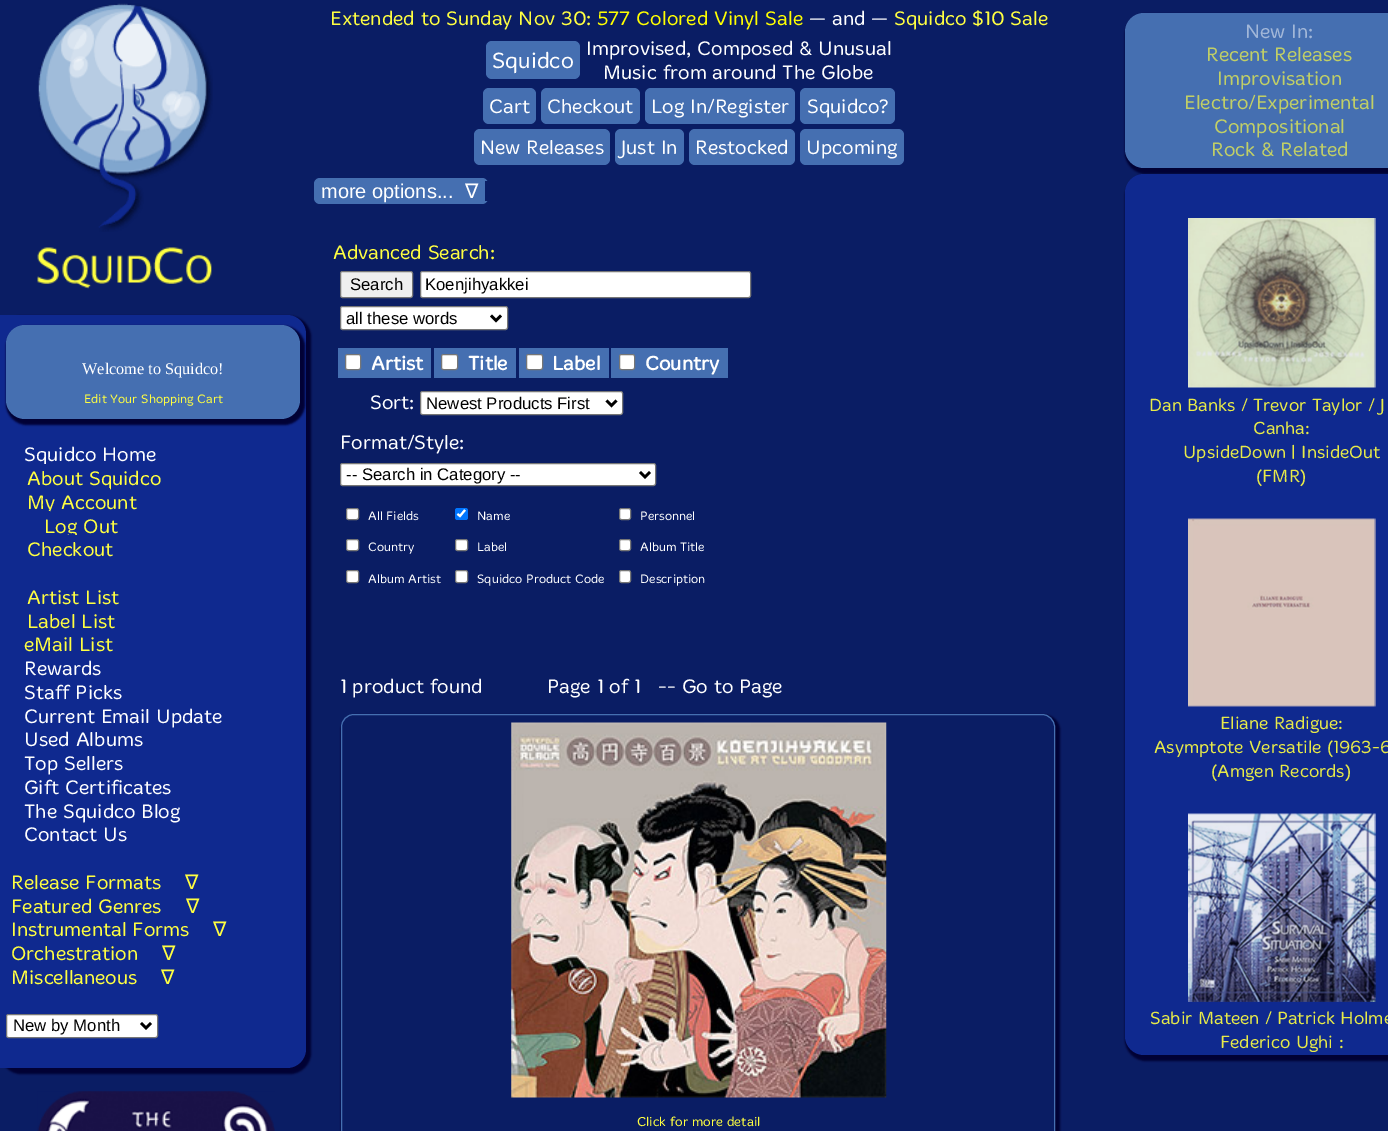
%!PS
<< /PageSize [1388 1131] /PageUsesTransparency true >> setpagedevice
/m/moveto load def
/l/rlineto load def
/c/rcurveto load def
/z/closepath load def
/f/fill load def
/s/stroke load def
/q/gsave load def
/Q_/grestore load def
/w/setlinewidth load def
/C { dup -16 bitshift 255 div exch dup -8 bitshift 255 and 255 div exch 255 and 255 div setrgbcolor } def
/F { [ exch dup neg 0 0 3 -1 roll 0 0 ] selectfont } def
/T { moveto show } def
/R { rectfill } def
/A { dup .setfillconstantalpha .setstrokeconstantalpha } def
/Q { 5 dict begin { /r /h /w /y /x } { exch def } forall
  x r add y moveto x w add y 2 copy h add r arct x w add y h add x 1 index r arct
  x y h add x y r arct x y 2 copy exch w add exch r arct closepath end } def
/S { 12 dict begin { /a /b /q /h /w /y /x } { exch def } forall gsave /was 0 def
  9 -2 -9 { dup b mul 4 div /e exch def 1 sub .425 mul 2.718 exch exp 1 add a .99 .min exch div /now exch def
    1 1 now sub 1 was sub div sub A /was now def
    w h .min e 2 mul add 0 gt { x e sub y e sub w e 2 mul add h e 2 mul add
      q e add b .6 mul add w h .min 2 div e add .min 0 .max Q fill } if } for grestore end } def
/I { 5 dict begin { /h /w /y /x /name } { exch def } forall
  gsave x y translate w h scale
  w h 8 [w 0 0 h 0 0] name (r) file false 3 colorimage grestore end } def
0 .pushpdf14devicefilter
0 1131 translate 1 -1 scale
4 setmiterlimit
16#0A1D64 C
0 0 1388 1131 R
(1.rgb) 38 3 175 229 I
(2.rgb) 37 247 175 42 I
/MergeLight-Light 20 F
16#FFFF41 C
(Extended to Sunday Nov 30:) 330 25 T
16#FFFF00 C
(577 Colored Vinyl Sale) 597 25 T
16#FFFFFF C
(— and —) 809 25 T
16#FFFF41 C
(Squidco $10 Sale) 894 25 T
16#456FB1 C
486 41 94 38 6 Q f
/MergeLight-Light 22.5 F
16#FFFFFF C
(Squidco) 492 68 T
/MergeLight-Light 20 F
(Improvised, Composed & Unusual) 586 55 T
(Music from around The Globe) 603 79 T
16#456FB1 C
483 88 53 36 6 Q f
16#FFFFFF C
(Cart) 489 113 T
16#456FB1 C
541 88 99 36 6 Q f
16#FFFFFF C
(Checkout) 547 113 T
16#456FB1 C
645 88 150 36 6 Q f
16#FFFFFF C
(Log In/Register) 651 113 T
16#456FB1 C
800 88 95 36 6 Q f
16#FFFFFF C
(Squidco?) 807 113 T
16#456FB1 C
474 129 136 36 6 Q f
16#FFFFFF C
(New Releases) 480 154 T
16#456FB1 C
615 129 69 36 6 Q f
16#FFFFFF C
(Just In) 621 154 T
16#456FB1 C
689 129 106 36 6 Q f
16#FFFFFF C
(Restocked) 695 154 T
16#456FB1 C
800 129 104 36 6 Q f
16#FFFFFF C
(Upcoming) 806 154 T
16#456FB1 C
314 178 174 26 6 Q f
16#0A1D64 C
485 181 3 20 R
/LiberationSans-Regular 20 F
16#FFFFFF C
(more options...) 321 198 T
/DejaVuSans-Regular 20 F
(∇) 465 198 T
/MergeLight-Light 20 F
16#FFFF41 C
(Advanced Search:) 333 259 T
16#EFEFEF C
340.5 271.5 72 26 2 Q q f Q_
16#767676 C
s
/LiberationSans-Regular 16.75 F
16#000000 C
(Search) 350 290 T
16#FFFFFF C
420.5 271.5 330 26 2 Q q f Q_
16#767676 C
s
16#000000 C
(Koenjihyakkei) 425 290 T
16#FFFFFF C
340.5 306.5 167 23 2 Q q f Q_
16#767676 C
s
16#000000 C
2.5 w
491 315.5 m 5 5 l 5 -5 l s
(all these words) 346 324 T
16#456FB1 C
338 348 93 30 R
16#FFFFFF C
345.5 354.5 15 15 2 Q q f Q_
16#767676 C
1 w
s
/MergeLight-Bold 20 F
16#FFFFFF C
(Artist) 371 370 T
16#456FB1 C
434 348 82 30 R
16#FFFFFF C
441.5 354.5 16 15 2 Q q f Q_
16#767676 C
s
16#FFFFFF C
(Title) 468 370 T
16#456FB1 C
519 348 90 30 R
16#FFFFFF C
526.5 354.5 16 15 2 Q q f Q_
16#767676 C
s
16#FFFFFF C
(Label) 552 370 T
16#456FB1 C
611 348 117 30 R
16#FFFFFF C
619.5 354.5 15 15 2 Q q f Q_
16#767676 C
s
16#FFFFFF C
(Country) 645 370 T
/MergeLight-Light 20 F
(Sort:) 370 409 T
420.5 391.5 202 23 2 Q q f Q_
16#767676 C
s
16#000000 C
2.5 w
606.5 400.5 m 5 5 l 5 -5 l s
/LiberationSans-Regular 16.75 F
(Newest Products First) 426 409 T
/MergeLight-Light 20 F
16#FFFFFF C
(Format/Style:) 340 449 T
340.5 463.5 315 22 2 Q q f Q_
16#767676 C
1 w
s
16#000000 C
2.5 w
640 472 m 5 5 l 5 -5 l s
/LiberationSans-Regular 16.75 F
(-- Search in Category --) 346 480 T
16#FFFFFF C
346.5 508.5 12 11 2 Q q f Q_
16#767676 C
1 w
s
/MergeLight-Light 12.5 F
16#FFFFFF C
(All Fields) 368 520 T
16#0075FF C
455 508 13 12 2.5 Q f
16#FFFFFF C
2 w
457.5 514 m 2.5 2 l 5 -6 l s
(Name) 477 520 T
619.5 508.5 11 11 2 Q q f Q_
16#767676 C
1 w
s
16#FFFFFF C
(Personnel) 640 520 T
346.5 539.5 12 11 2 Q q f Q_
16#767676 C
s
16#FFFFFF C
(Country) 368 551 T
455.5 539.5 12 11 2 Q q f Q_
16#767676 C
s
16#FFFFFF C
(Label) 477 551 T
619.5 539.5 11 11 2 Q q f Q_
16#767676 C
s
16#FFFFFF C
(Album Title) 640 551 T
346.5 570.5 12 12 2 Q q f Q_
16#767676 C
s
16#FFFFFF C
(Album Artist) 368 583 T
455.5 570.5 12 12 2 Q q f Q_
16#767676 C
s
16#FFFFFF C
(Squidco Product Code) 477 583 T
619.5 570.5 11 12 2 Q q f Q_
16#767676 C
s
16#FFFFFF C
(Description) 640 583 T
/MergeLight-Light 20 F
(1 product found) 340 693 T
(Page 1 of 1   -- Go to Page) 547 693 T
q
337 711 m 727 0 l 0 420 l -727 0 l z 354 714 m 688 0 l 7 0 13 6 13 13 c 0 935 l 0 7 -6 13 -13 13 c -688 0 l -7 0 -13 -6 -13 -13 c 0 -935 l 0 -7 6 -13 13 -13 c z eoclip newpath
16#000033 C
341 715 719 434 15 1 1 S
Q_
16#456FB1 C
341.5 714.5 713 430 12.5 Q s
(3.rgb) 511 722 376 376 I
/MergeLight-Light 13.25 F
16#FFFF41 C
(Click for more detail) 637 1126 T
16#000033 C
0 316 311 758 21 1 1 S
16#0F298F C
0 315 m 287 0 l 10.5 0 19 8.5 19 19 c 0 715 l 0 10.5 -8.5 19 -19 19 c -287 0 l z f
16#000033 C
6 326 299 99 21 1 1 S
16#456FB1 C
6 325 294 94 19 Q f
/LiberationSerif-Regular 16.25 F
16#FFFFFF C
(Welcome to Squidco!) 82 374 T
/MergeLight-Light 12.5 F
16#FFFF41 C
(Edit Your Shopping Cart) 84 403 T
/MergeLight-Light 20 F
16#FFFFFF C
(Squidco Home) 24 461 T
16#FFFF41 C
(About Squidco) 27 485 T
16#0F298F C
44 464 2 2 R
16#FFFF41 C
(My Account) 27 509 T
16#0F298F C
108 488 2 2 R
16#FFFF41 C
(Log Out) 44 533 T
16#0F298F C
47 511 3 3 R
16#FFFF41 C
(Checkout) 27 556 T
16#0F298F C
67 535 10 3 R
16#FFFF41 C
(Artist List) 27 604 T
(Label List) 27 628 T
(eMail List) 24 651 T
16#FFFFFF C
(Rewards) 24 675 T
(Staff Picks) 24 699 T
(Current Email Update) 24 723 T
(Used Albums) 24 746 T
(Top Sellers) 24 770 T
(Gift Certificates) 24 794 T
(The Squidco Blog) 24 818 T
(Contact Us) 24 841 T
16#FFFF41 C
(Release Formats) 11 889 T
/DejaVuSans-Regular 20 F
(∇) 185 889 T
/MergeLight-Light 20 F
(Featured Genres) 11 913 T
/DejaVuSans-Regular 20 F
(∇) 186 913 T
/MergeLight-Light 20 F
(Instrumental Forms) 11 936 T
/DejaVuSans-Regular 20 F
(∇) 213 936 T
/MergeLight-Light 20 F
(Orchestration) 11 960 T
/DejaVuSans-Regular 20 F
(∇) 162 960 T
/MergeLight-Light 20 F
(Miscellaneous) 11 984 T
/DejaVuSans-Regular 20 F
(∇) 161 984 T
16#FFFFFF C
6.5 1014.5 151 23 2 Q q f Q_
16#767676 C
s
16#000000 C
2.5 w
141 1023 m 5 5 l 5 -5 l s
/LiberationSans-Regular 16.75 F
(New by Month) 13 1031 T
(4.rgb) 37 1091 238 40 I
16#000033 C
1125 14 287 160 21 1 1 S
16#456FB1 C
1125 13 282 155 19 Q f
/MergeLight-Light 20 F
16#A2B7D8 C
(New In:) 1245 38 T
16#C1CF66 C
(Recent Releases) 1206 61 T
(Improvisation) 1217 85 T
(Electro/Experimental) 1184 109 T
(Compositional) 1214 133 T
(Rock & Related) 1211 156 T
16#000033 C
1125 175 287 886 21 1 1 S
16#0F298F C
1125 174 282 881 19 Q f
(5.rgb) 1188 218 188 170 I
/MergeLight-Light 18 F
16#E7EA48 C
(Dan Banks / Trevor Taylor / J) 1149 411 T
(Canha:) 1253 434 T
(UpsideDown | InsideOut) 1183 458 T
(\(FMR\)) 1256 482 T
(6.rgb) 1188 518 188 189 I
(Eliane Radigue:) 1220 729 T
(Asymptote Versatile \(1963-6) 1154 753 T
(\(Amgen Records\)) 1211 777 T
(7.rgb) 1188 813 188 189 I
(Sabir Mateen / Patrick Holme) 1150 1024 T
(Federico Ughi :) 1220 1048 T
.poppdf14devicefilter showpage
